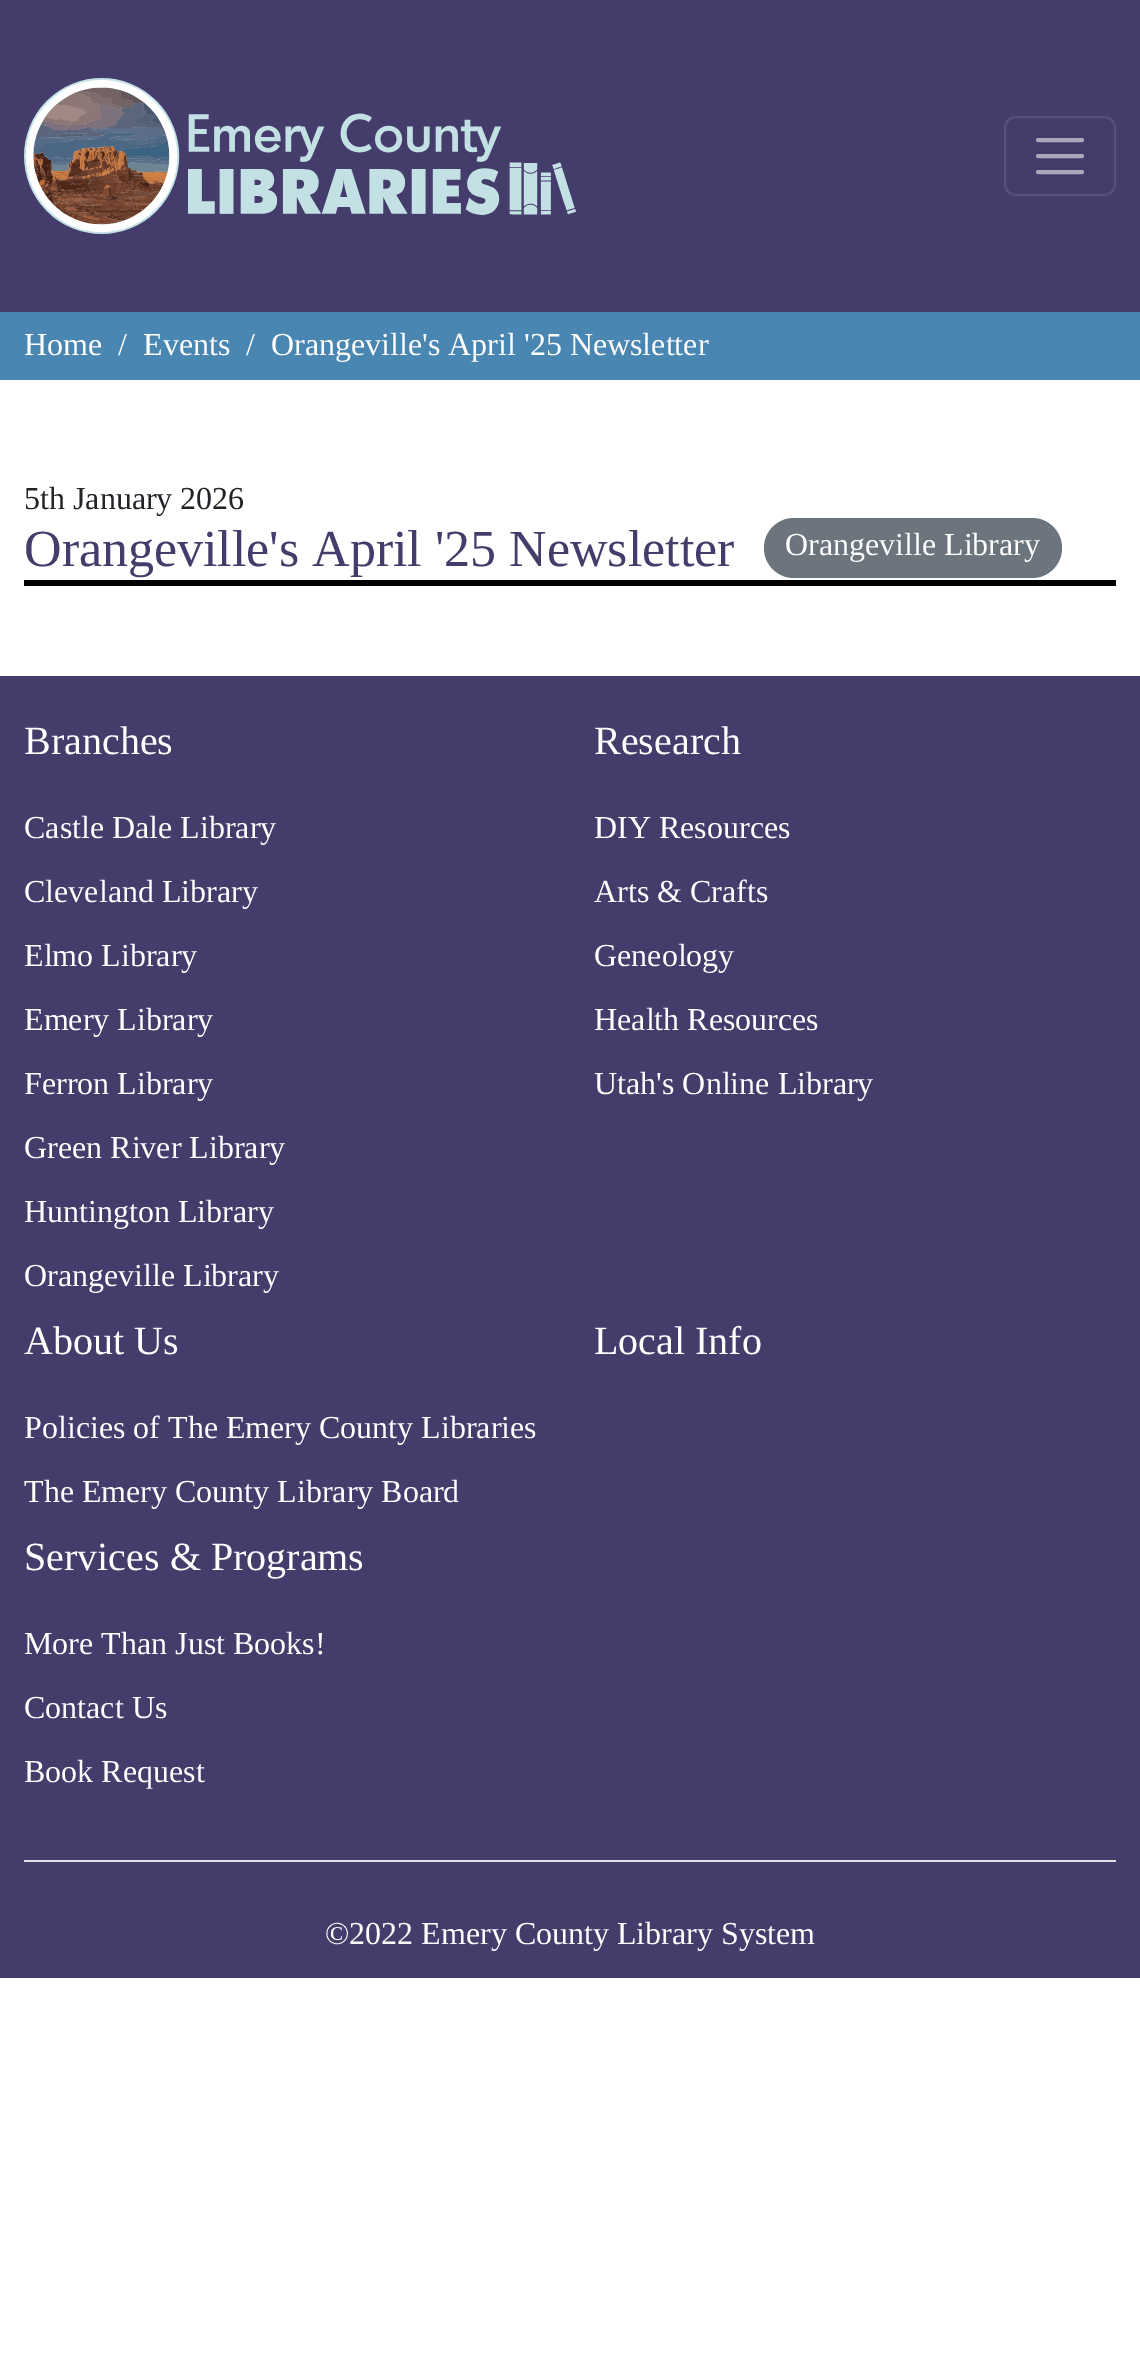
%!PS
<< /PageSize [1140 2371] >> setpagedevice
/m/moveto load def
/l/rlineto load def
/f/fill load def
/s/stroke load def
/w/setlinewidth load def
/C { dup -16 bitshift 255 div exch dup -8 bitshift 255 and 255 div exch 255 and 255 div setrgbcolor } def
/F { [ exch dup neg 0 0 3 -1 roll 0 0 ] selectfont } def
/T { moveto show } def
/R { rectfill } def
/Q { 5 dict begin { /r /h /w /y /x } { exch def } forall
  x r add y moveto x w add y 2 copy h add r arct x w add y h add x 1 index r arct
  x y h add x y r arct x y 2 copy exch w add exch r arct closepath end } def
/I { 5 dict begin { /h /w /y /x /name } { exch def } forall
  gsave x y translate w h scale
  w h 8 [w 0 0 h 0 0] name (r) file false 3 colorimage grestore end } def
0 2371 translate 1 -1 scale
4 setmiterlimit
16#FFFFFF C
0 0 1140 2371 R
16#443D6B C
0 0 1140 312 R
(1.rgb) 24 78 552 156 I
16#57507A C
2 w
1005 117 110 78 11 Q s
16#ABA8BC C
4 w
1 setlinecap
1038 140 m 44 0 l 1038 156 m 44 0 l 1038 172 m 44 0 l s
16#4986B2 C
0 312 1140 68 R
/LiberationSerif-Regular 32 F
16#FFFFFF C
(Home) 24 355 T
(/) 118 355 T
(Events) 143 355 T
(/) 246 355 T
(Orangeville's April '25 Newsletter) 271 355 T
16#212529 C
(5th January 2026) 24 509 T
16#000000 C
24 580 1092 6 R
/LiberationSerif-Regular 52 F
16#443D6B C
(Orangeville's April '25 Newsletter) 24 566 T
16#6C757D C
764 518 298 60 30 Q f
/LiberationSerif-Regular 32 F
16#FFFFFF C
(Orangeville Library) 785 555 T
16#443D6B C
0 676 1140 1302 R
/LiberationSerif-Regular 40 F
16#FFFFFF C
(Branches) 24 754 T
/LiberationSerif-Regular 32 F
(Castle Dale Library) 24 838 T
(Cleveland Library) 24 902 T
(Elmo Library) 24 966 T
(Emery Library) 24 1030 T
(Ferron Library) 24 1094 T
(Green River Library) 24 1158 T
(Huntington Library) 24 1222 T
(Orangeville Library) 24 1286 T
/LiberationSerif-Regular 40 F
(Research) 594 754 T
/LiberationSerif-Regular 32 F
(DIY Resources) 594 838 T
(Arts & Crafts) 594 902 T
(Geneology) 594 966 T
(Health Resources) 594 1030 T
(Utah's Online Library) 594 1094 T
/LiberationSerif-Regular 40 F
(About Us) 24 1354 T
/LiberationSerif-Regular 32 F
(Policies of The Emery County Libraries) 24 1438 T
(The Emery County Library Board) 24 1502 T
/LiberationSerif-Regular 40 F
(Local Info) 594 1354 T
(Services & Programs) 24 1570 T
/LiberationSerif-Regular 32 F
(More Than Just Books!) 24 1654 T
(Contact Us) 24 1718 T
(Book Request) 24 1782 T
16#DEE2E6 C
24 1860 1092 2 R
16#FFFFFF C
(©2022 Emery County Library System) 325 1944 T
showpage
